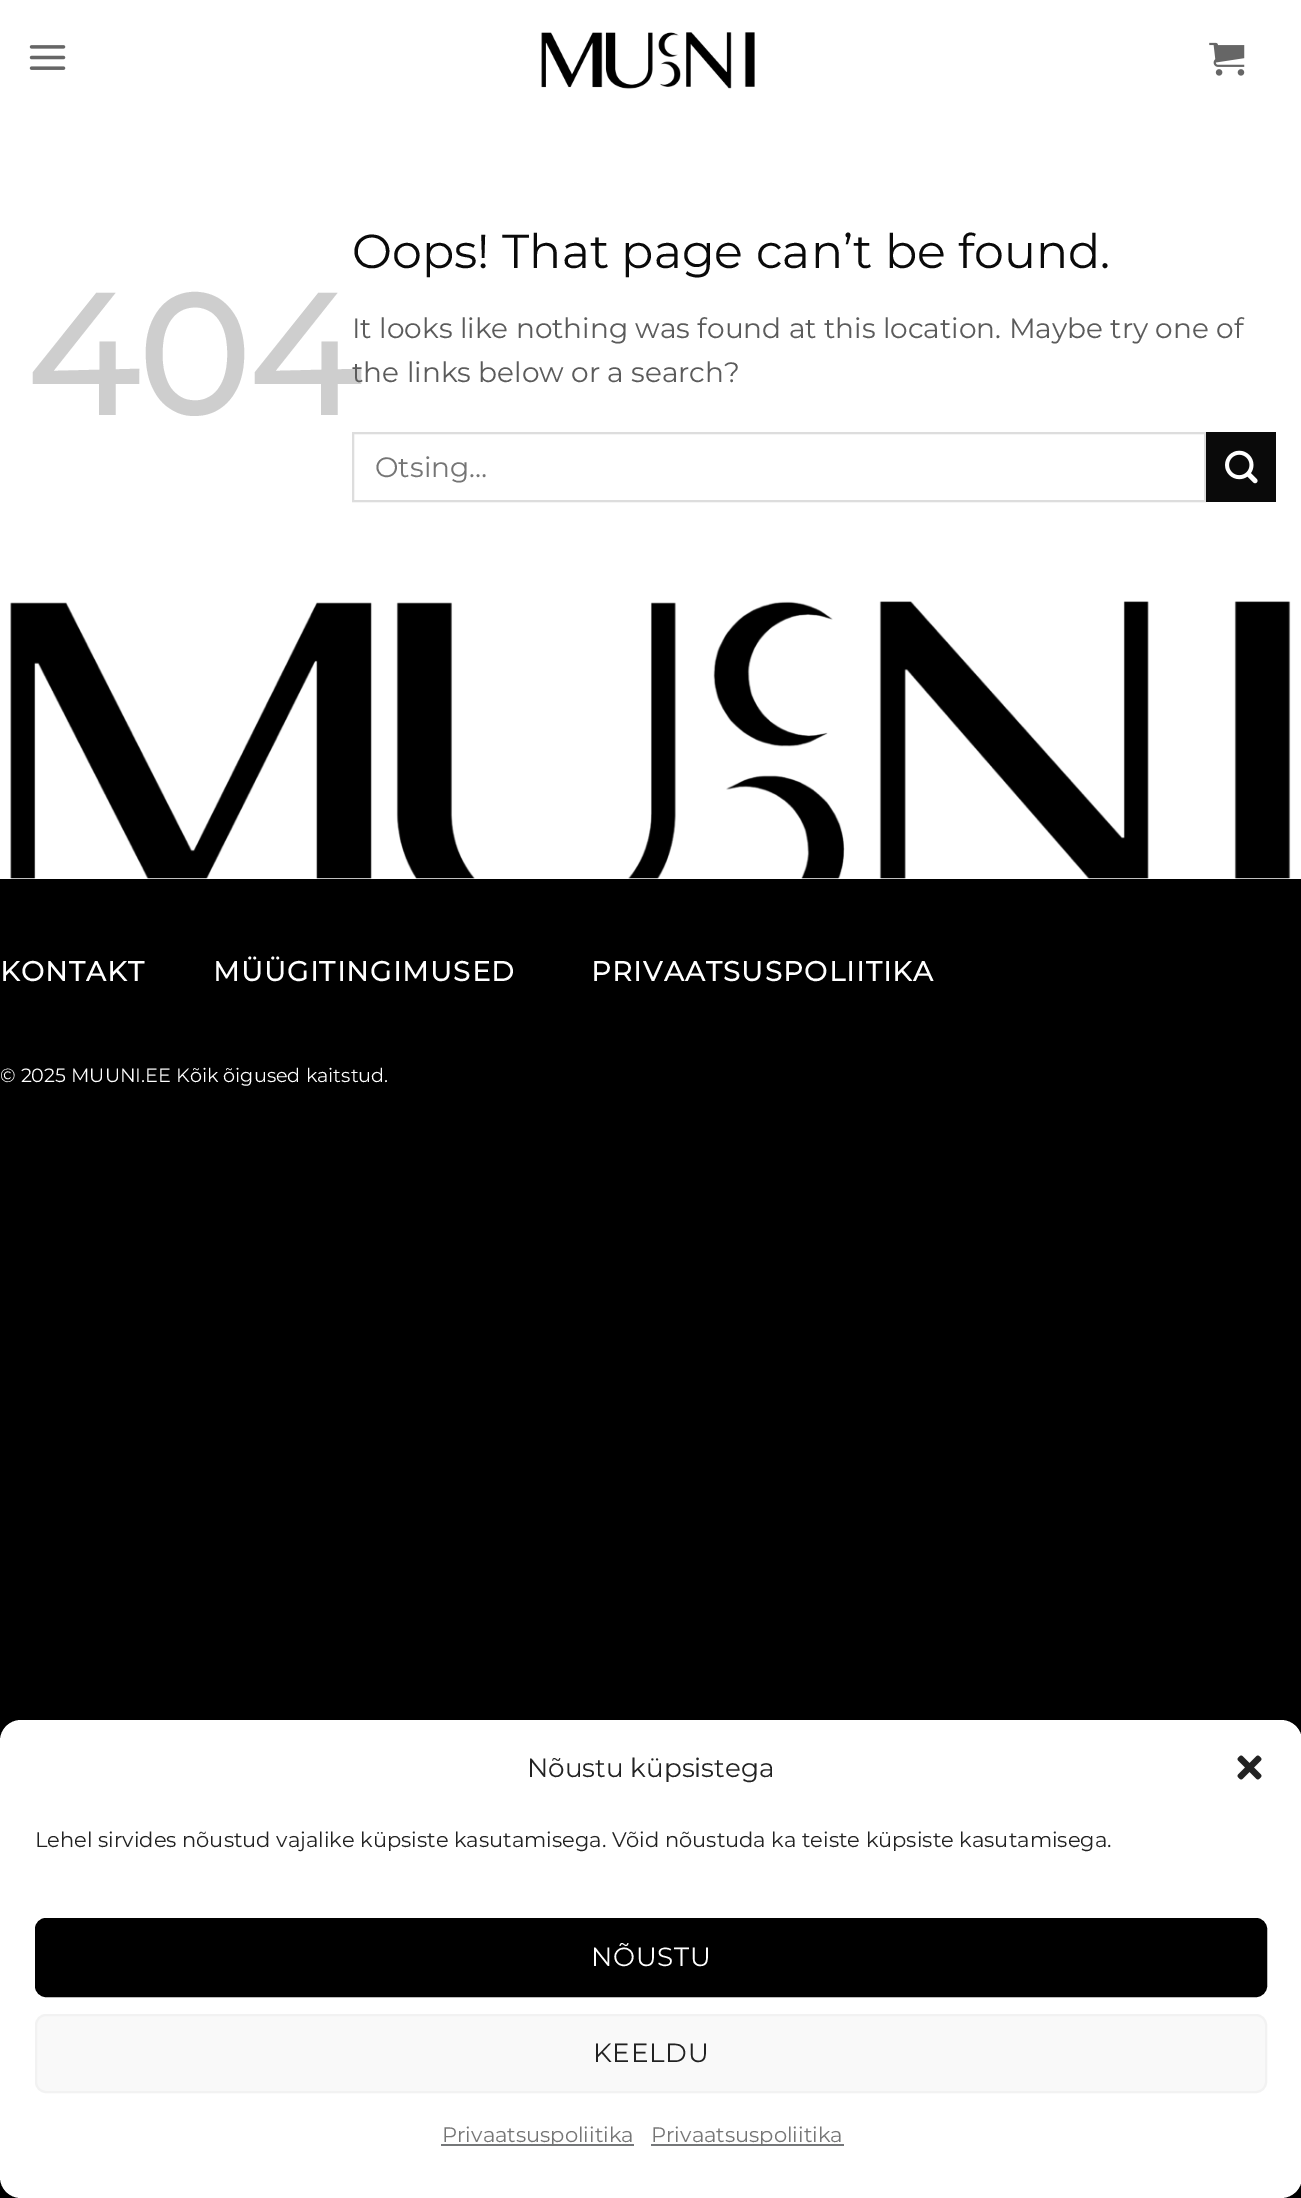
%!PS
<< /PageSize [1301 2198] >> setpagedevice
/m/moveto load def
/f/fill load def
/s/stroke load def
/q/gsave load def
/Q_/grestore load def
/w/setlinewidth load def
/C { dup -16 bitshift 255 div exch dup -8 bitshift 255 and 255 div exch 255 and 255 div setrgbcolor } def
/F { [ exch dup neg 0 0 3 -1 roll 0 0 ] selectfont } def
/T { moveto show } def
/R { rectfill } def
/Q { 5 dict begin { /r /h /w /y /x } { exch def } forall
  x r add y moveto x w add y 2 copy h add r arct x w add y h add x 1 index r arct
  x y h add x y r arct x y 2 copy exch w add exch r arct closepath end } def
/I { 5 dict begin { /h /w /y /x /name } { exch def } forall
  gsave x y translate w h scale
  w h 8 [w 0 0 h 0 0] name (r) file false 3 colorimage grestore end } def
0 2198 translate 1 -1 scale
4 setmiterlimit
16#000000 C
0 0 1301 2198 R
16#FFFFFF C
0 0 1301 879 R
(1.rgb) 29 45 37 25 I
(2.rgb) 541 32 214 57 I
(3.rgb) 1209 42 36 34 I
/Montserrat-Bold 168 F
16#CECECE C
(404) 26 415 T
/Montserrat-Thin 47.6 F
16#0A0A0A C
(Oops! That page can’t be found.) 352 268 T
/Montserrat-Thin 28 F
16#5B5B5B C
(It looks like nothing was found at this location. Maybe try one of) 352 338 T
(the links below or a search?) 352 382 T
16#DDDDDD C
2 w
353 433 852 68 rectstroke
16#757575 C
(Otsing…) 375 477 T
16#0A0A0A C
1206 432 70 70 R
(4.rgb) 1225 450 33 34 I
(5.rgb) 10 601 1281 278 I
/Montserrat-Bold 27.5 F
16#FFFFFF C
0 981 m 1.4 0 (KONTAKT) ashow
213 981 m 1.4 0 (MÜÜGITINGIMUSED) ashow
591 981 m 1.4 0 (PRIVAATSUSPOLIITIKA) ashow
/Montserrat-Thin 19.2 F
(© 2025 MUUNI.EE Kõik õigused kaitstud.) 0 1082 T
0 1720 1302 478 21 Q f
/Montserrat-Thin 26.25 F
16#222222 C
(Nõustu küpsistega) 527 1777 T
(6.rgb) 1237 1755 25 25 I
/Montserrat-Thin 21 F
(Lehel sirvides nõustud vajalike küpsiste kasutamisega. Võid nõustuda ka teiste küpsiste kasutamisega.) 35 1847 T
16#000000 C
36 1919 1230 77 10 Q q f Q_
s
/Montserrat-Thin 26.25 F
16#FFFFFF C
591 1966 m .75 0 (NÕUSTU) ashow
16#F9F9F9 C
36 2015 1230 77 10 Q q f Q_
16#F2F2F2 C
s
16#222222 C
593 2062 m .75 0 (KEELDU) ashow
16#757779 C
441 2144 193 2 R
/Montserrat-Thin 21 F
16#757575 C
(Privaatsuspoliitika) 442 2142 T
16#757779 C
651 2144 193 2 R
16#757575 C
(Privaatsuspoliitika) 651 2142 T
showpage
